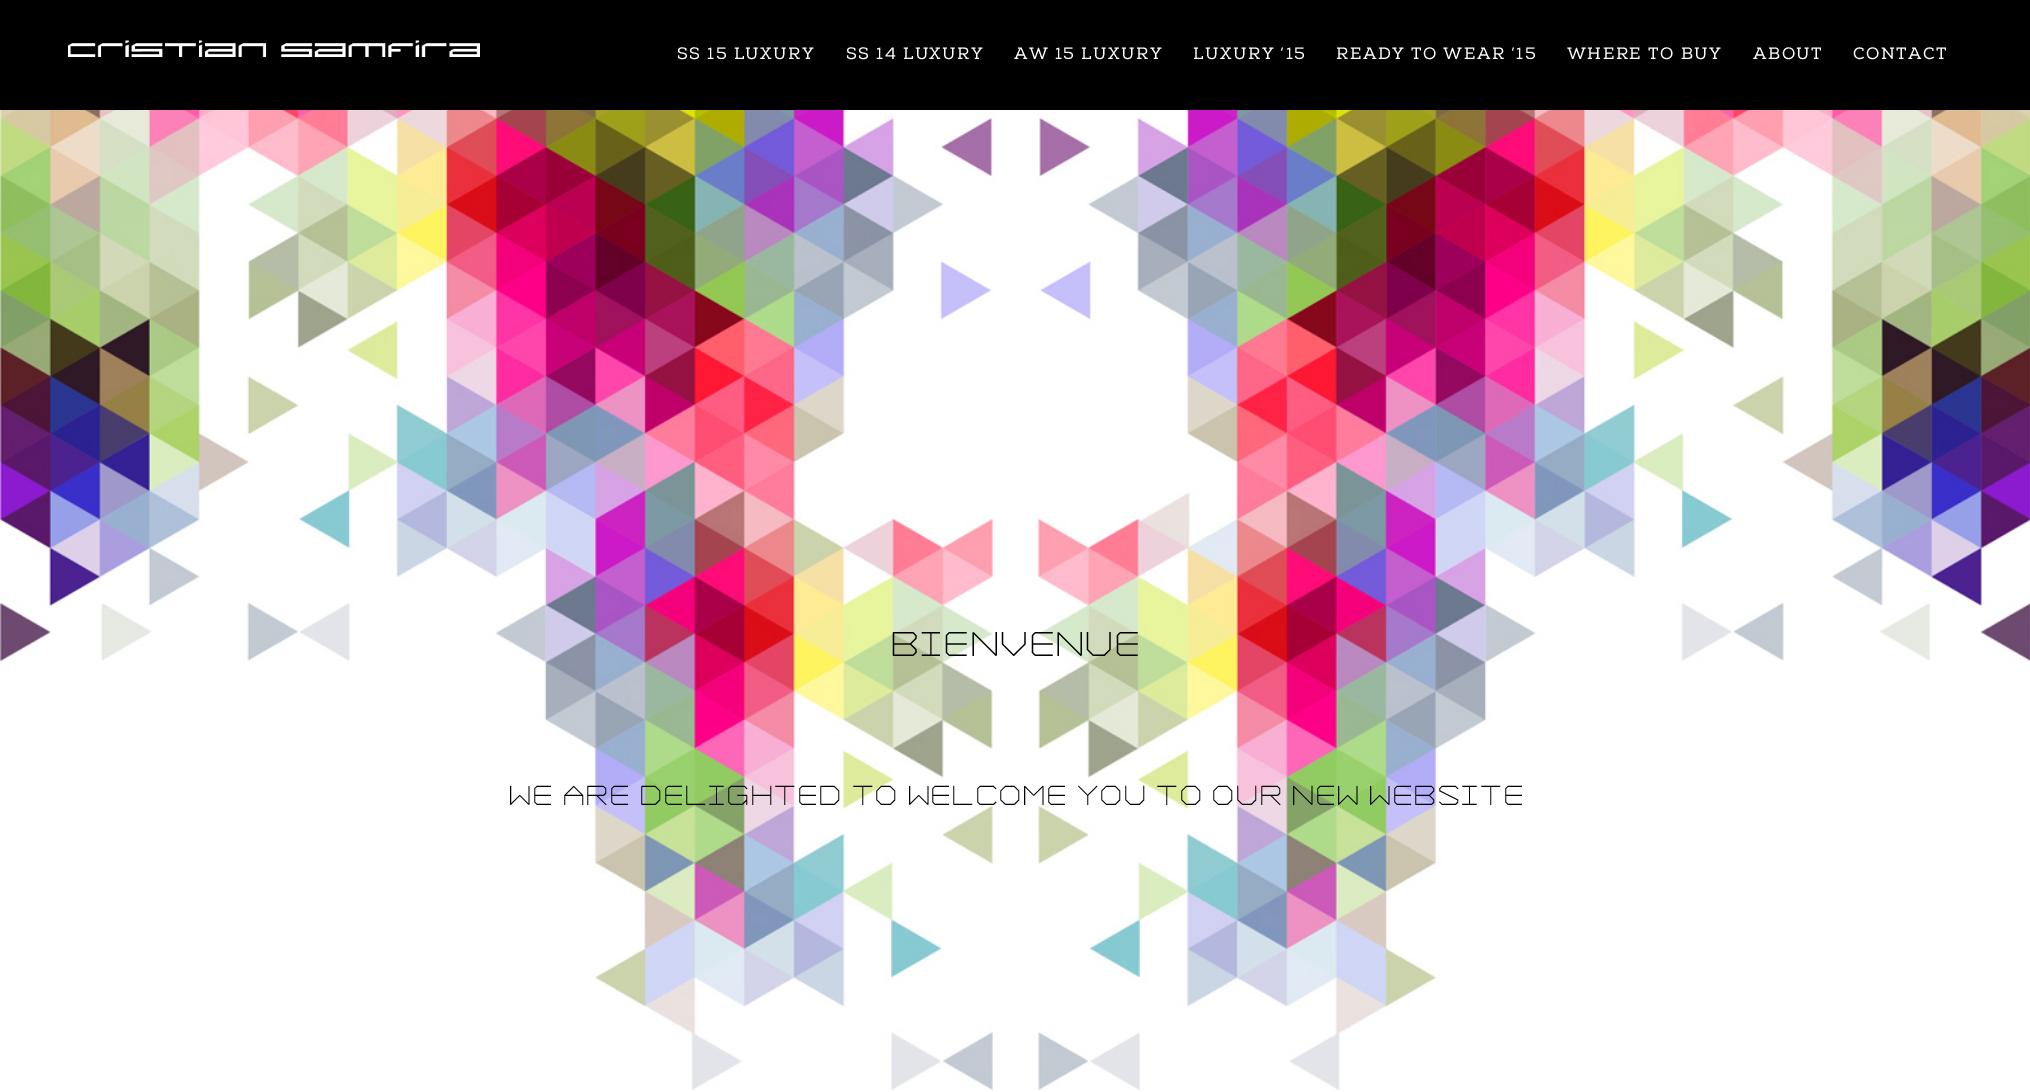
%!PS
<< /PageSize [2030 1092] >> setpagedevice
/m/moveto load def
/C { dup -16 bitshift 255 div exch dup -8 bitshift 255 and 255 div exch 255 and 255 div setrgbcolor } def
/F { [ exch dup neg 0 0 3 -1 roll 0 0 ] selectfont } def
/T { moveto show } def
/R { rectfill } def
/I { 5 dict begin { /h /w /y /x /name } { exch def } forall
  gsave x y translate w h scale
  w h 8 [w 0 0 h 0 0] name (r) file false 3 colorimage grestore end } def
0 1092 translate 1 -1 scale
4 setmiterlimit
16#FFFFFF C
0 0 2030 1092 R
16#000000 C
0 0 2030 110 R
(1.rgb) 68 40 412 17 I
/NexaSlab-Regular 16.5 F
16#FFFFFF C
677 59 m 1.5 0 (SS 15 LUXURY) ashow
846 59 m 1.5 0 (SS 14 LUXURY) ashow
1014 59 m 1.5 0 (AW 15 LUXURY) ashow
1193 59 m 1.5 0 (LUXURY ’15) ashow
1336 59 m 1.5 0 (READY TO WEAR ’15) ashow
1567 59 m 1.5 0 (WHERE TO BUY) ashow
1753 59 m 1.5 0 (ABOUT) ashow
1853 59 m 1.5 0 (CONTACT) ashow
(2.rgb) 0 110 2030 981 I
/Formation-Light 30 F
16#000000 C
(BIENVENUE) 890 656 T
/Formation-Light 24 F
(WE ARE DELIGHTED TO WELCOME YOU TO OUR NEW WEBSITE) 508 805 T
showpage
